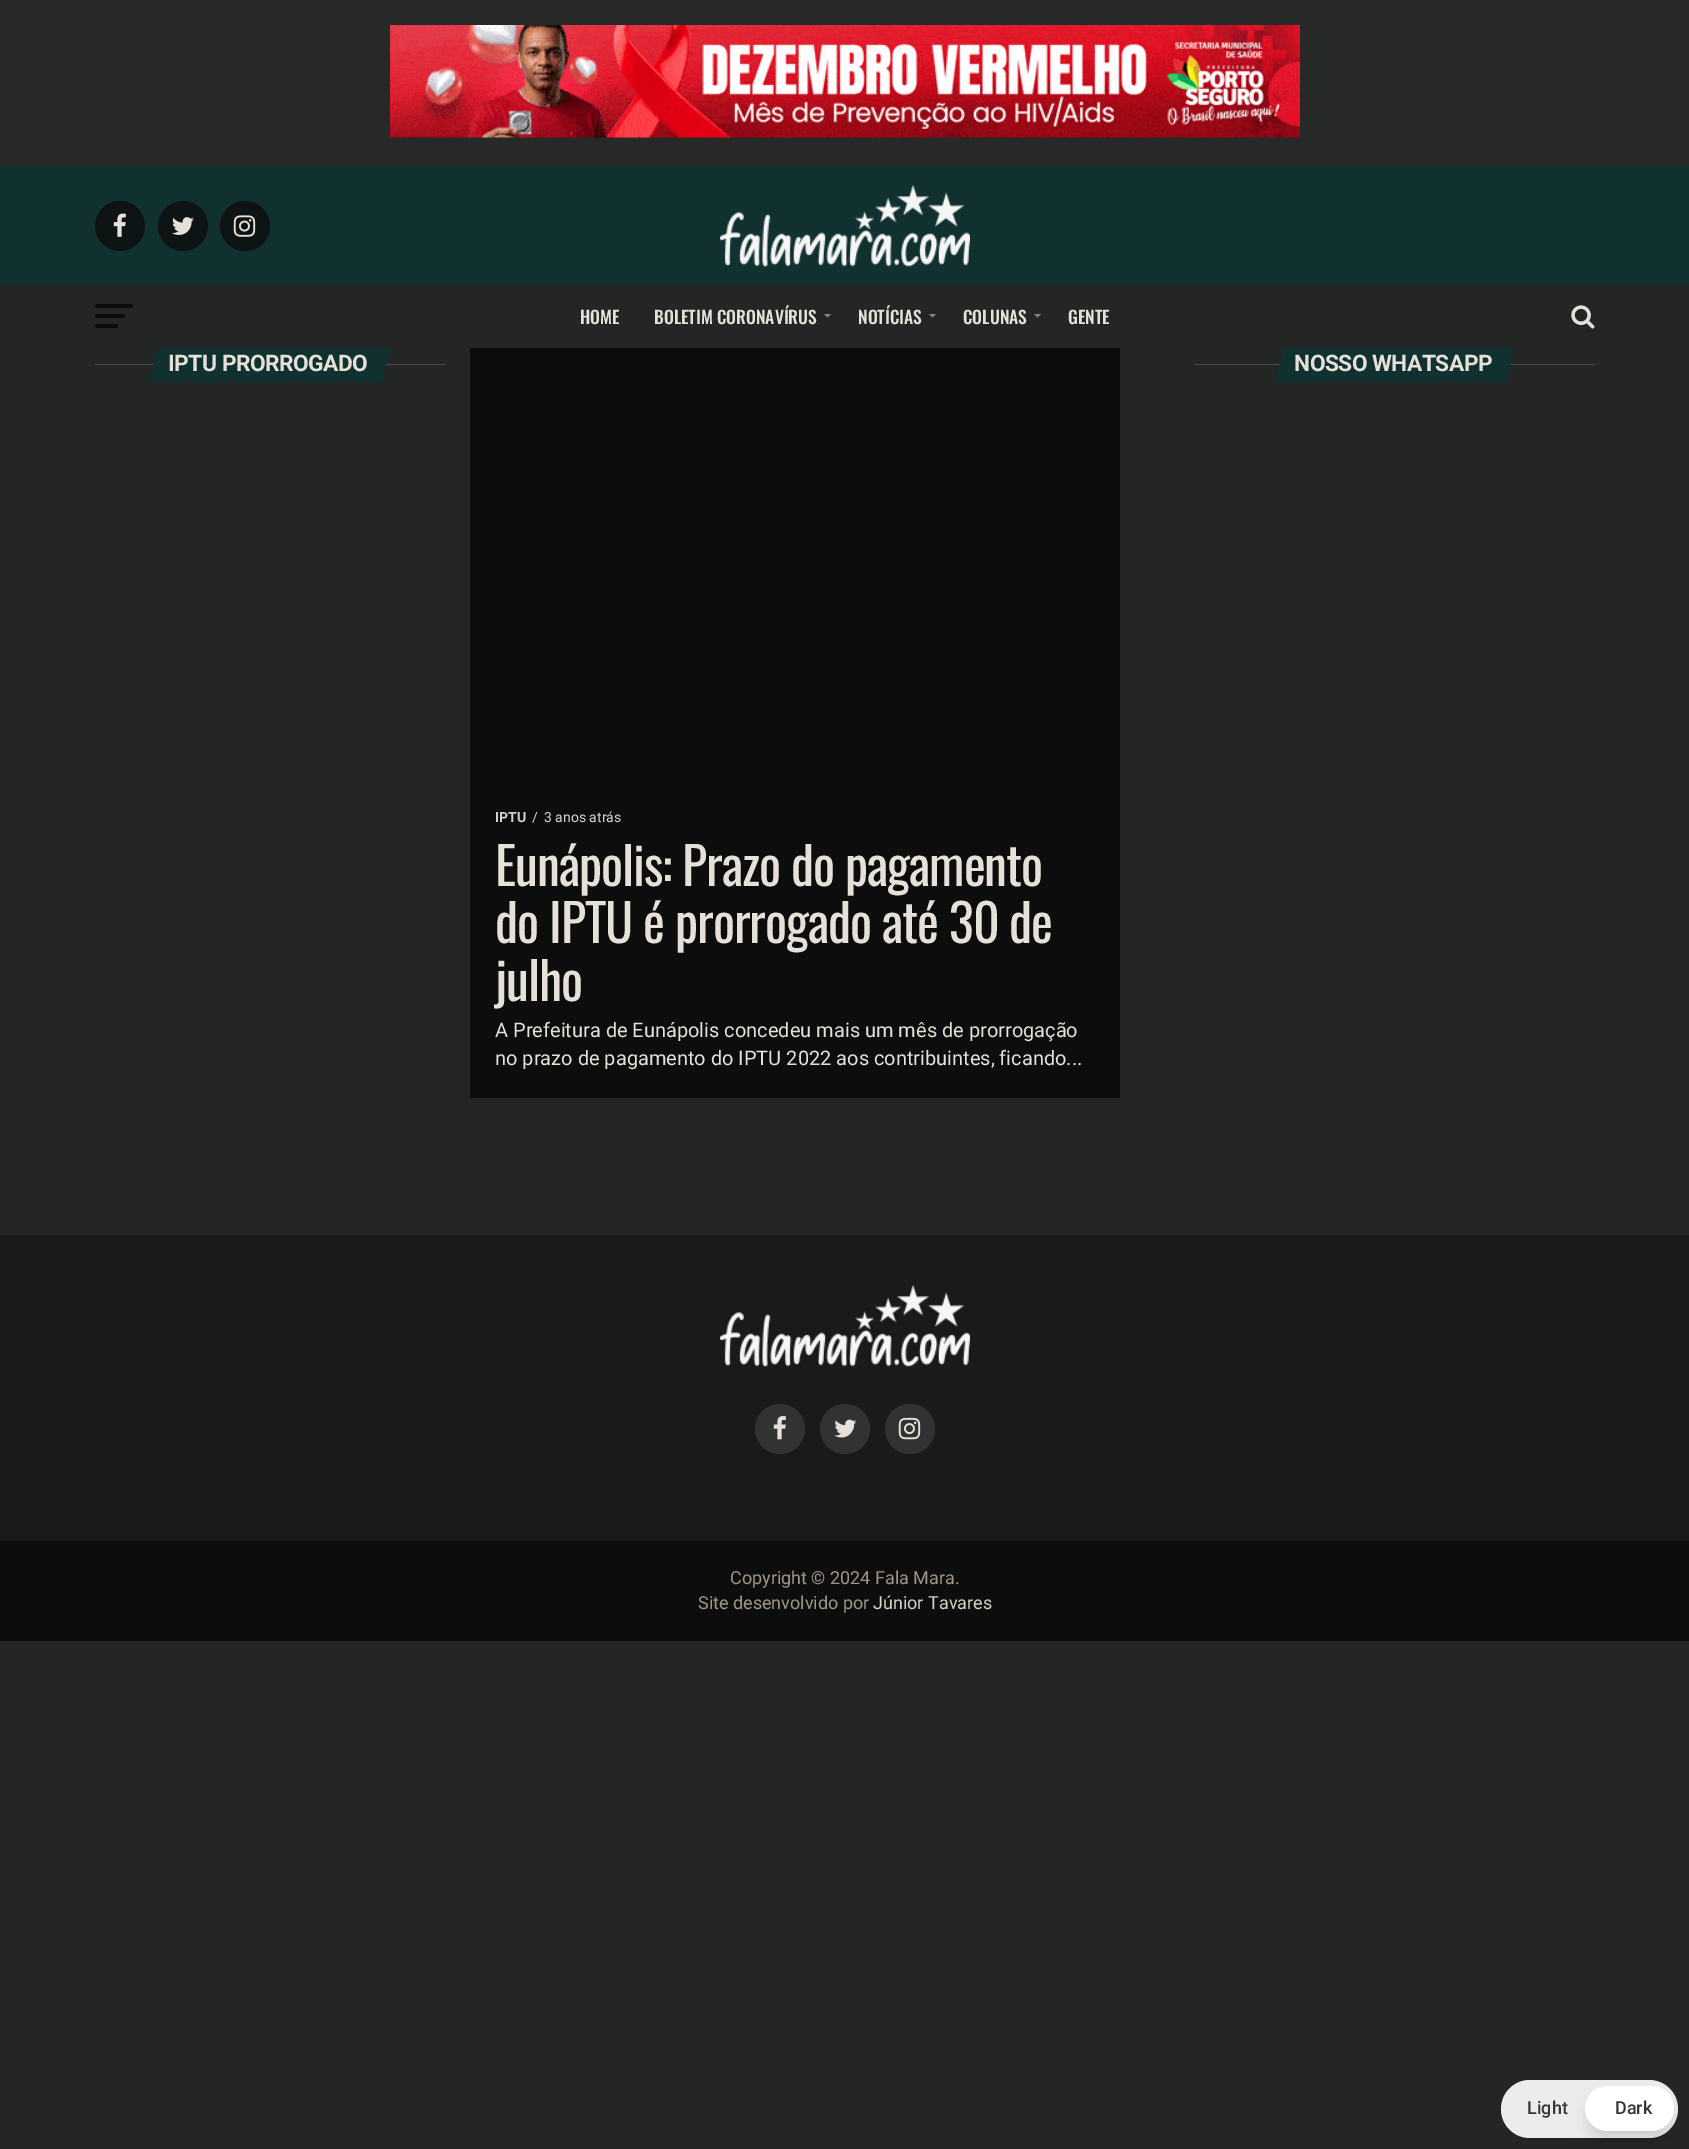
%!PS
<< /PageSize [1689 2149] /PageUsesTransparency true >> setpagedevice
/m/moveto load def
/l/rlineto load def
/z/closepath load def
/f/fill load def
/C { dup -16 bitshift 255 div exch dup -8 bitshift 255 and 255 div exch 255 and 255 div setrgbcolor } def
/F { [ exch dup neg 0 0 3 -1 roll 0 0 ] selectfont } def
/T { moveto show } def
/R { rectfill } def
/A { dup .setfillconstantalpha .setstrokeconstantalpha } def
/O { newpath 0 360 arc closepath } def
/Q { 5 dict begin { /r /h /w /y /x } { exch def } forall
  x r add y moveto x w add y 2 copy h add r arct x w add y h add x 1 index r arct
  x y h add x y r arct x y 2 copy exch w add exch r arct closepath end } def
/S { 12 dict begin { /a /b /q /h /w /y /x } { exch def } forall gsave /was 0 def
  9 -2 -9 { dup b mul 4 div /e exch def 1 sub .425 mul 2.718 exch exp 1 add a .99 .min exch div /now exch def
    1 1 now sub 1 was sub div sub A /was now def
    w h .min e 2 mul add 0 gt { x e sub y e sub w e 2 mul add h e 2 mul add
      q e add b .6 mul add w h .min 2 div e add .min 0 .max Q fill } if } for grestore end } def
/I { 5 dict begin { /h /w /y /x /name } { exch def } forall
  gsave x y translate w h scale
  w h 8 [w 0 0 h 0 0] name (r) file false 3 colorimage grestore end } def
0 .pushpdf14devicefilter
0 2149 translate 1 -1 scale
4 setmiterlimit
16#242525 C
0 0 1689 2149 R
16#272928 C
0 0 1689 166 R
(1.rgb) 390 25 910 113 I
16#113130 C
0 166 1689 119 R
16#0E1414 C
120 226 25 O f
(2.rgb) 113 213 13 24 I
183 226 25 O f
(3.rgb) 172 217 22 18 I
245 226 25 O f
(4.rgb) 233 215 23 22 I
(5.rgb) 720 185 250 82 I
16#0D0D0D C
95 304 38 4 2 Q f
95 314 30 4 2 Q f
95 324 23 4 2 Q f
/Oswald-Medium 17.5 F
16#E5E0D8 C
(HOME) 580 324 T
(BOLETIM CORONAVÍRUS) 654 324 T
16#8F8475 C
824 314 m 7 0 l -3.5 3.5 l z f
16#E5E0D8 C
(NOTÍCIAS) 858 324 T
16#8F8475 C
929 314 m 7 0 l -3.5 3.5 l z f
16#E5E0D8 C
(COLUNAS) 963 324 T
16#8F8475 C
1034 314 m 7 0 l -3.5 3.5 l z f
16#E5E0D8 C
(GENTE) 1068 324 T
(6.rgb) 1571 305 24 24 I
16#494C4D C
95 364 350 1 R
16#113130 C
158 348 m 233 0 l -9 34 l -233 0 l z f
/Roboto-Bold 22.75 F
16#E5E0D8 C
168 371 m -.5 0 (IPTU PRORROGADO) ashow
16#0D0D0D C
470 348 650 750 R
/Roboto-Bold 14 F
16#D6D1C6 C
(IPTU) 495 822 T
/Roboto-Regular 14 F
16#DBD5CC C
(/) 532 822 T
(3 anos atrás) 544 822 T
/Oswald-Regular 52 F
16#E5E0D8 C
495 886 m -1.05 0 (Eunápolis: Prazo do pagamento) ashow
495 943 m -1.05 0 (do IPTU é prorrogado até 30 de) ashow
495 1001 m -1.05 0 (julho) ashow
/Roboto-Regular 20 F
(A Prefeitura de Eunápolis concedeu mais um mês de prorrogação) 495 1037 T
(no prazo de pagamento do IPTU 2022 aos contribuintes, ficando...) 495 1065 T
16#494C4D C
1195 364 400 1 R
16#113130 C
1284 348 m 231 0 l -9 34 l -231 0 l z f
/Roboto-Bold 22.75 F
16#E5E0D8 C
1294 371 m -.5 0 (NOSSO WHATSAPP) ashow
16#191A19 C
0 1235 1689 306 R
(7.rgb) 720 1285 250 82 I
16#313333 C
780 1429 25 O f
(8.rgb) 773 1416 13 24 I
845 1429 25 O f
(9.rgb) 834 1419 23 19 I
910 1429 25 O f
(10.rgb) 898 1417 23 23 I
16#0D0D0D C
0 1541 1689 100 R
/Roboto-Regular 18 F
16#9E9587 C
(Copyright © 2024 Fala Mara.) 730 1584 T
(Site desenvolvido por) 698 1609 T
16#D6D1C6 C
(Júnior Tavares) 873 1609 T
16#ECECEC C
1501 2080 177 58 29 Q f
16#000000 C
1589 2103 81 37 18.5 9.5 .1 S
/Roboto-Medium 18 F
16#35353B C
(Light) 1527 2114 T
16#000000 C
1590 2096 79 35 17.5 4 .1 S
16#FFFFFF C
1585 2086 89 45 22.5 Q f
16#35353B C
(Dark) 1615 2114 T
.poppdf14devicefilter showpage
